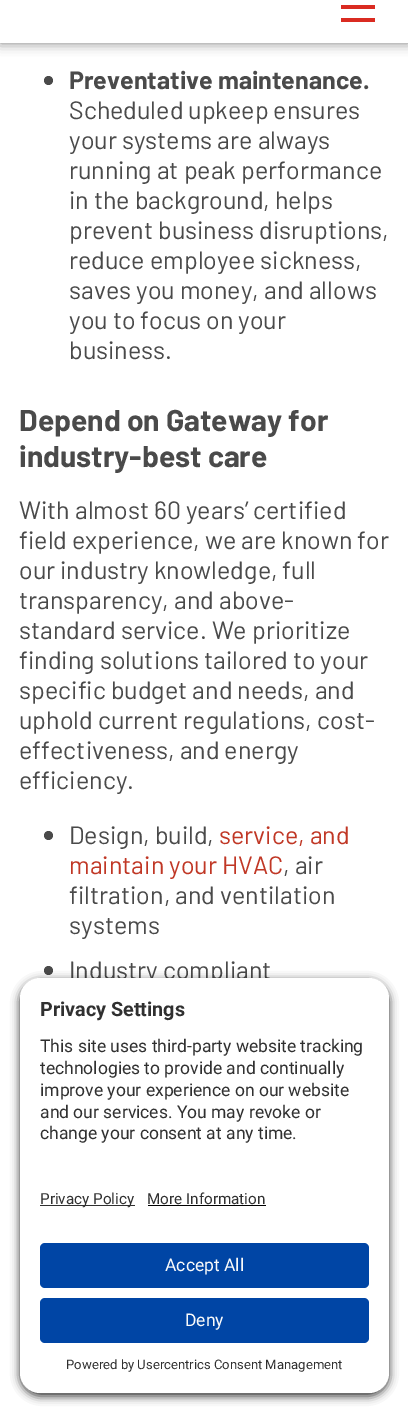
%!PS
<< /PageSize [408 1412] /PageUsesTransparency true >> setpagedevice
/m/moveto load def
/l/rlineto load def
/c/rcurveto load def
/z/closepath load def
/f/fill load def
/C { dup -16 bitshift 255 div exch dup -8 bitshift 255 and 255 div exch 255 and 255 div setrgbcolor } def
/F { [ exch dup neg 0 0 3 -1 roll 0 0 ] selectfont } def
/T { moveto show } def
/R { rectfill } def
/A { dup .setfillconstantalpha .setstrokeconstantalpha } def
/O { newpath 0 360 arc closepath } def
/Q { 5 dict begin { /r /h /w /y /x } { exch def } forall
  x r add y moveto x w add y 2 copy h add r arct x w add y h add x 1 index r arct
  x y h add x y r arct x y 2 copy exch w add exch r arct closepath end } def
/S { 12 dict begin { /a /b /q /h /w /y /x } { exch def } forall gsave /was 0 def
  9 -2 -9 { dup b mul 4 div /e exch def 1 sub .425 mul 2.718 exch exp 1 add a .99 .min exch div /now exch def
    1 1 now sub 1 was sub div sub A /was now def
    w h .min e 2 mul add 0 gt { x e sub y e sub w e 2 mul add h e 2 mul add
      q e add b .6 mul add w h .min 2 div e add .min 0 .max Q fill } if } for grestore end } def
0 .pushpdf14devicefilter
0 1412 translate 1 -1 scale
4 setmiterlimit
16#FFFFFF C
0 0 408 1412 R
16#000000 C
0 0 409 43 0 6 .5 S
16#FFFFFF C
0 0 408 43 R
16#DA2B21 C
341 5 34 4 R
341 18 34 4 R
16#4A4A4A C
48.5 80.5 4.5 O f
/Barlow-Bold 25 F
(Preventative maintenance.) 69 89 T
/Barlow-Regular 25 F
(Scheduled upkeep ensures) 69 119 T
(your systems are always) 69 149 T
(running at peak performance) 69 179 T
(in the background, helps) 69 209 T
(prevent business disruptions,) 69 239 T
(reduce employee sickness,) 69 269 T
(saves you money, and allows) 69 299 T
(you to focus on your) 69 329 T
(business.) 69 359 T
/Barlow-Bold 30 F
(Depend on Gateway for) 19 431 T
(industry-best care) 19 467 T
/Barlow-Regular 25 F
(With almost 60 years’ certified) 19 519 T
(field experience, we are known for) 19 549 T
(our industry knowledge, full) 19 579 T
(transparency, and above-) 19 609 T
(standard service. We prioritize) 19 639 T
(finding solutions tailored to your) 19 669 T
(specific budget and needs, and) 19 699 T
(uphold current regulations, cost-) 19 729 T
(effectiveness, and energy) 19 759 T
(efficiency.) 19 789 T
48.5 835.5 4.5 O f
(Design, build,) 69 844 T
16#C03725 C
(service, and) 219 844 T
(maintain your HVAC) 69 874 T
16#4A4A4A C
(, air) 283 874 T
(filtration, and ventilation) 69 904 T
(systems) 69 934 T
48.5 970.5 4.5 O f
(Industry compliant) 69 979 T
16#000000 C
20 981 369 415 20 4.5 .8 S
16#FFFFFF C
40 978 m 329 0 l 11 0 20 9 20 20 c 0 172 l -369 0 l 0 -172 l 0 -11 9 -20 20 -20 c z f
/Roboto-Bold 19.75 F
16#303030 C
(Privacy Settings) 40 1016 T
/Roboto-Regular 17.5 F
(This site uses third-party website tracking) 40 1052 T
(technologies to provide and continually) 40 1074 T
(improve your experience on our website) 40 1096 T
(and our services. You may revoke or) 40 1118 T
(change your consent at any time.) 40 1139 T
16#FFFFFF C
20 1170 m 369 0 l 0 203 l 0 11 -9 20 -20 20 c -329 0 l -11 0 -20 -9 -20 -20 c z f
16#303030 C
40 1205 95 1 R
/Roboto-Regular 15.25 F
(Privacy Policy) 40 1204 T
(More Information) 147 1204 T
16#000000 C
148 1205 118 1 R
16#0045A5 C
40 1243 329 45 5 Q f
/Roboto-Regular 17.5 F
16#FAFAFA C
(Accept All) 165 1271 T
16#0045A5 C
40 1298 329 45 5 Q f
16#FAFAFA C
(Deny) 185 1326 T
/Roboto-Regular 13.1 F
16#303030 C
(Powered by Usercentrics Consent Management) 66 1369 T
.poppdf14devicefilter showpage
